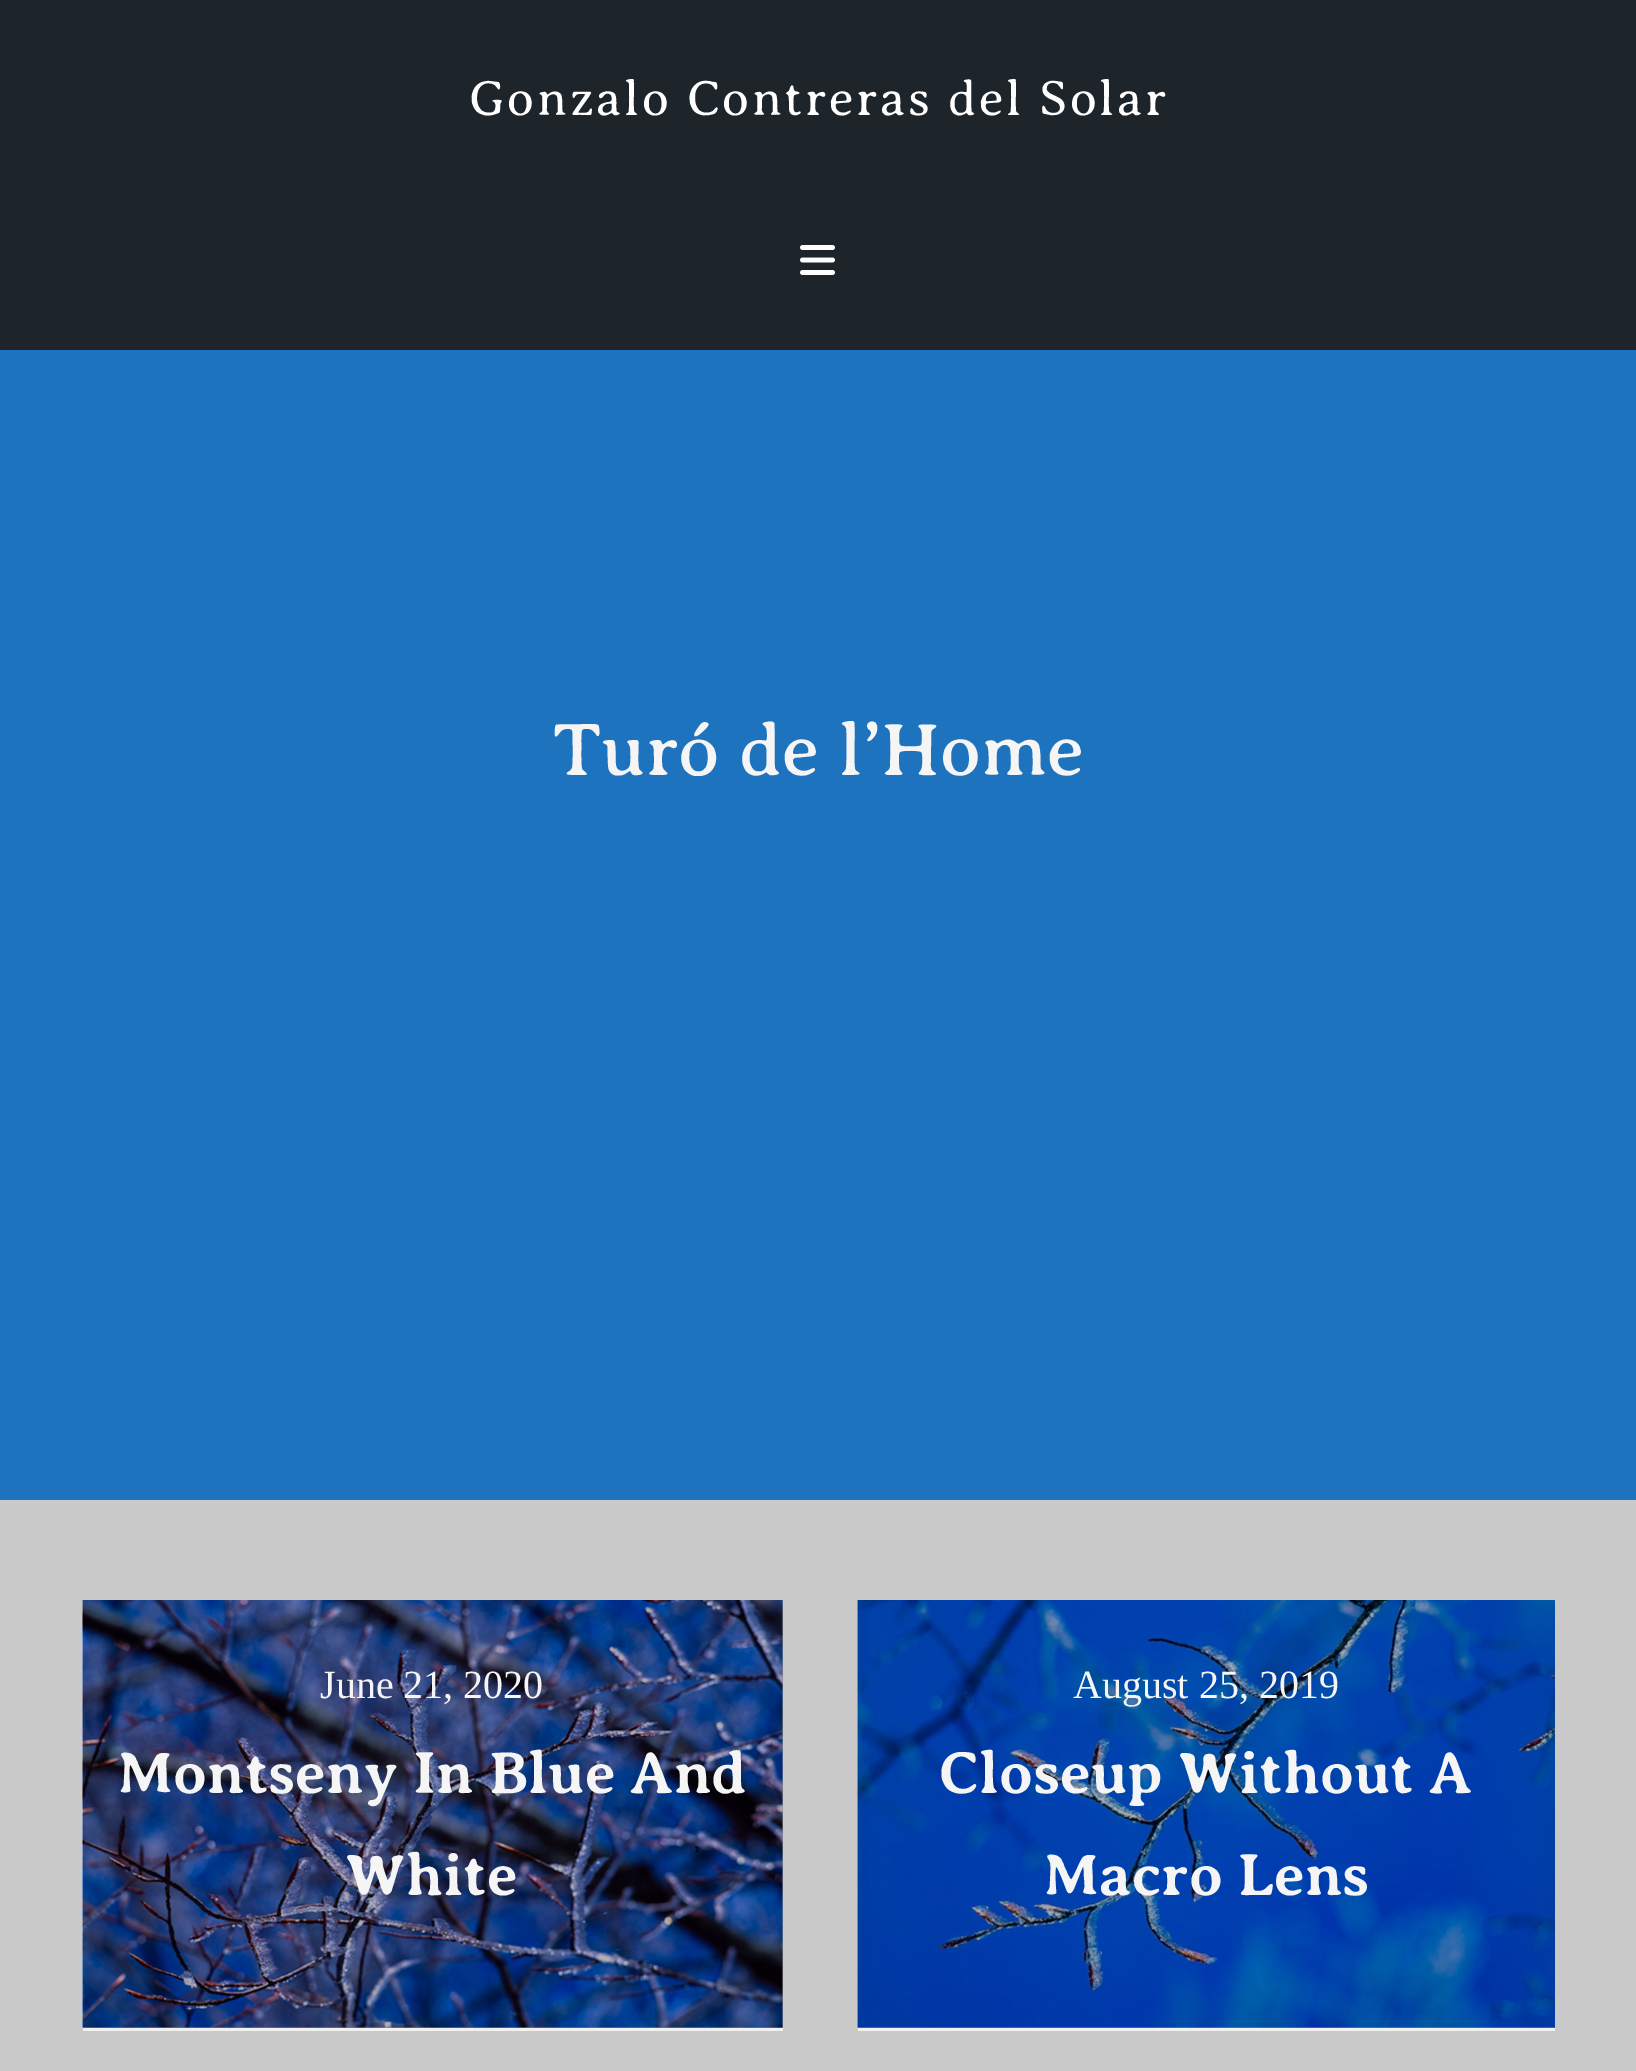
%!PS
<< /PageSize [1636 2071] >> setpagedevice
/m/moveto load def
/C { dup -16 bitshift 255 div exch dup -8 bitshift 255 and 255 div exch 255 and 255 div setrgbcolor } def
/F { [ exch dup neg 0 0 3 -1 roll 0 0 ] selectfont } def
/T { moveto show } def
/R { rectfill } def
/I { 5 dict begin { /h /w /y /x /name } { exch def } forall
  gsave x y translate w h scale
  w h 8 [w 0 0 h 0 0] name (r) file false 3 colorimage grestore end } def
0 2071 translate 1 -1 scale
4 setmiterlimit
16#C9C9C9 C
0 0 1636 2071 R
16#8D8D8D C
858 2027 697 1 R
83 1600 700 428 R
16#1D242A C
0 0 1636 350 R
/AveriaSerifLibre-Light 50 F
16#FFFFFF C
469 115 m 2.5 0 (Gonzalo Contreras del Solar) ashow
(1.rgb) 800 245 35 30 I
16#1E73BE C
0 350 1636 1150 R
/AveriaSerifLibre-Regular 75 F
16#F5F5F5 C
(Turó de l’Home) 553 775 T
16#F1F1F1 C
83 2028 700 3 R
(2.rgb) 82 1600 701 428 I
/LiberationSerif-Regular 40 F
16#F5F5F5 C
(June 21, 2020) 320 1698 T
/AveriaSerifLibre-Bold 60 F
(Montseny In Blue And) 117 1793 T
(White) 345 1895 T
16#F1F1F1 C
858 2028 697 3 R
(3.rgb) 857 1600 698 428 I
/LiberationSerif-Regular 40 F
16#F5F5F5 C
(August 25, 2019) 1073 1698 T
/AveriaSerifLibre-Bold 60 F
(Closeup Without A) 939 1793 T
(Macro Lens) 1043 1895 T
showpage
